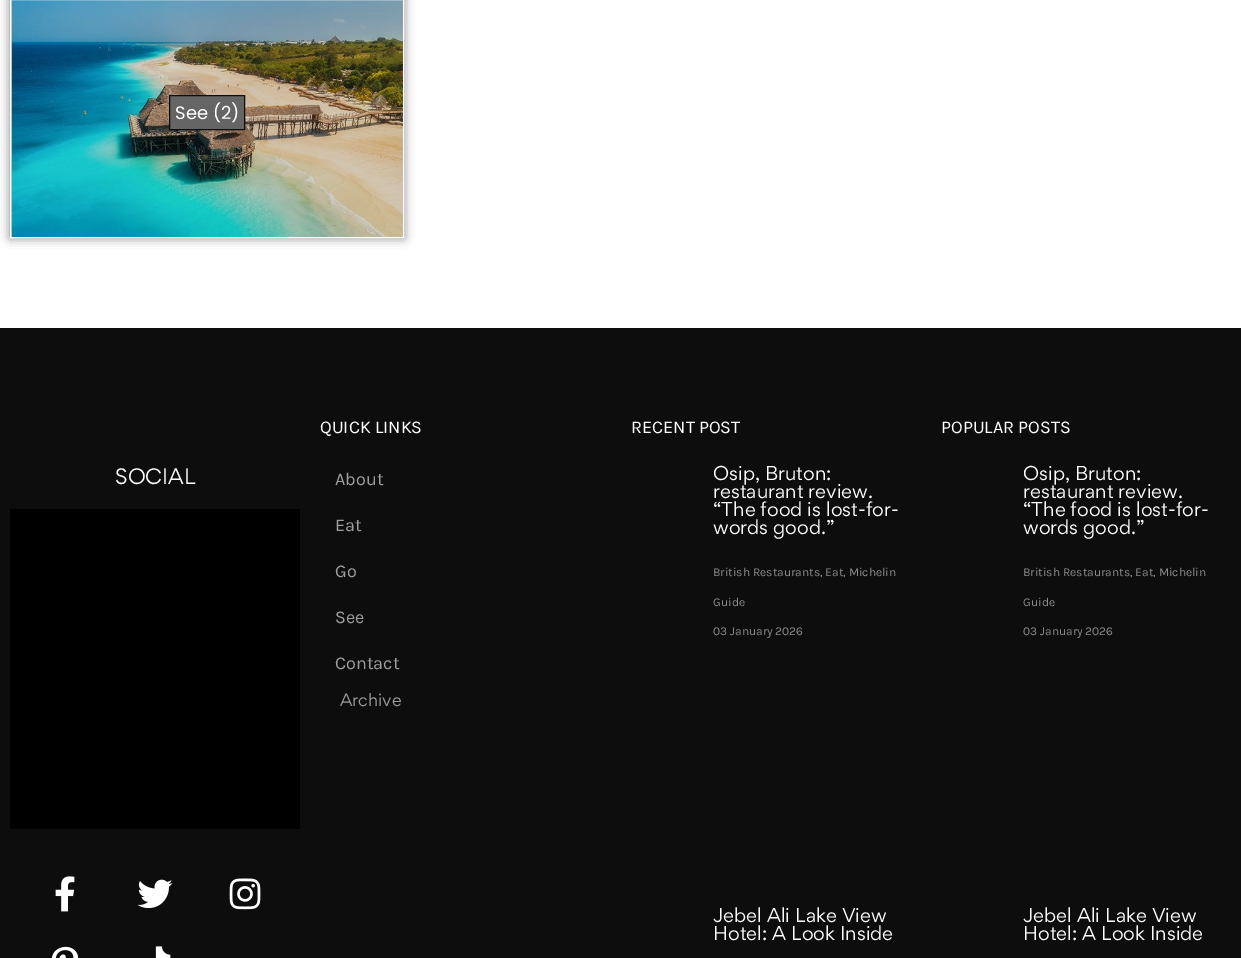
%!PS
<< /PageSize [1241 958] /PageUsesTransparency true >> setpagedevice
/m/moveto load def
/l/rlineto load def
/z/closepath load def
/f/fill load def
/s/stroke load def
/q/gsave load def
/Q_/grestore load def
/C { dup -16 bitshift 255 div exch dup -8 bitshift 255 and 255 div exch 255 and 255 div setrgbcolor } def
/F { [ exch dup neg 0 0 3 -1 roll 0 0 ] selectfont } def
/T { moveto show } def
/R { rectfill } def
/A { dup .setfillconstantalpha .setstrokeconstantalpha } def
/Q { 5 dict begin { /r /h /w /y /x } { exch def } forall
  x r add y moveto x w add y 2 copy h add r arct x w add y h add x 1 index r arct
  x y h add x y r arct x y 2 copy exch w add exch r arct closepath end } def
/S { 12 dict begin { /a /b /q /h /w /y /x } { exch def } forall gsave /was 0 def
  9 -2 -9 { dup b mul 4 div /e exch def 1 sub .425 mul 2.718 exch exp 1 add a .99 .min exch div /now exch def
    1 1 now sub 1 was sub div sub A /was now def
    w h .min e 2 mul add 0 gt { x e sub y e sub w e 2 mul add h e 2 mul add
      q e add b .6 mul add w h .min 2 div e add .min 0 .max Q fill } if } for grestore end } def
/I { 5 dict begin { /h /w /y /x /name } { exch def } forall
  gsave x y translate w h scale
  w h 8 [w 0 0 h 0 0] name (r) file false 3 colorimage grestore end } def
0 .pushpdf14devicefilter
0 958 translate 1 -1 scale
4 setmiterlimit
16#FFFFFF C
0 0 1241 958 R
16#000000 C
10 -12 394 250 0 5 .5 S
(1.rgb) 11 0 392 237 I
16#FFFFFF C
10.5 -.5 393 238 rectstroke
16#656565 C
169.5 95.5 m 75 0 l 0 34 l -75 0 l z q f Q_
16#0D0D0D C
s
/Poppins-Regular 18 F
16#FFFFFF C
(See \(2\)) 175 119 T
16#0D0D0D C
0 328 1241 630 R
/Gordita-Regular 20 F
16#FFFFFF C
(SOCIAL) 115 484 T
16#000000 C
10 509 290 320 R
(2.rgb) 55 876 20 36 I
(3.rgb) 137 879 36 30 I
(4.rgb) 229 878 32 32 I
(5.rgb) 52 946 27 12 I
(6.rgb) 155 946 16 12 I
/Karla-Regular 18 F
16#FFFFFF C
(QUICK LINKS) 320 433 T
16#9E9E9E C
(About) 335 485 T
(Eat) 335 531 T
(Go) 335 577 T
(See) 335 623 T
(Contact) 335 669 T
/Gordita-Regular 16 F
(Archive) 340 706 T
/Karla-Regular 18 F
16#FFFFFF C
(RECENT POST) 631 433 T
/Gordita-Regular 18 F
(Osip, Bruton:) 713 480 T
(restaurant review.) 713 498 T
(“The food is lost-for-) 713 516 T
(words good.”) 713 534 T
/Karla-Regular 12 F
16#8B8B8B C
(British Restaurants, Eat, Michelin) 713 576 T
(Guide) 713 606 T
(03 January 2026) 713 635 T
/Gordita-Regular 18 F
16#FFFFFF C
(Jebel Ali Lake View) 713 922 T
(Hotel: A Look Inside) 713 940 T
/Karla-Regular 18 F
(POPULAR POSTS) 941 433 T
/Gordita-Regular 18 F
(Osip, Bruton:) 1023 480 T
(restaurant review.) 1023 498 T
(“The food is lost-for-) 1023 516 T
(words good.”) 1023 534 T
/Karla-Regular 12 F
16#8B8B8B C
(British Restaurants, Eat, Michelin) 1023 576 T
(Guide) 1023 606 T
(03 January 2026) 1023 635 T
/Gordita-Regular 18 F
16#FFFFFF C
(Jebel Ali Lake View) 1023 922 T
(Hotel: A Look Inside) 1023 940 T
.poppdf14devicefilter showpage
